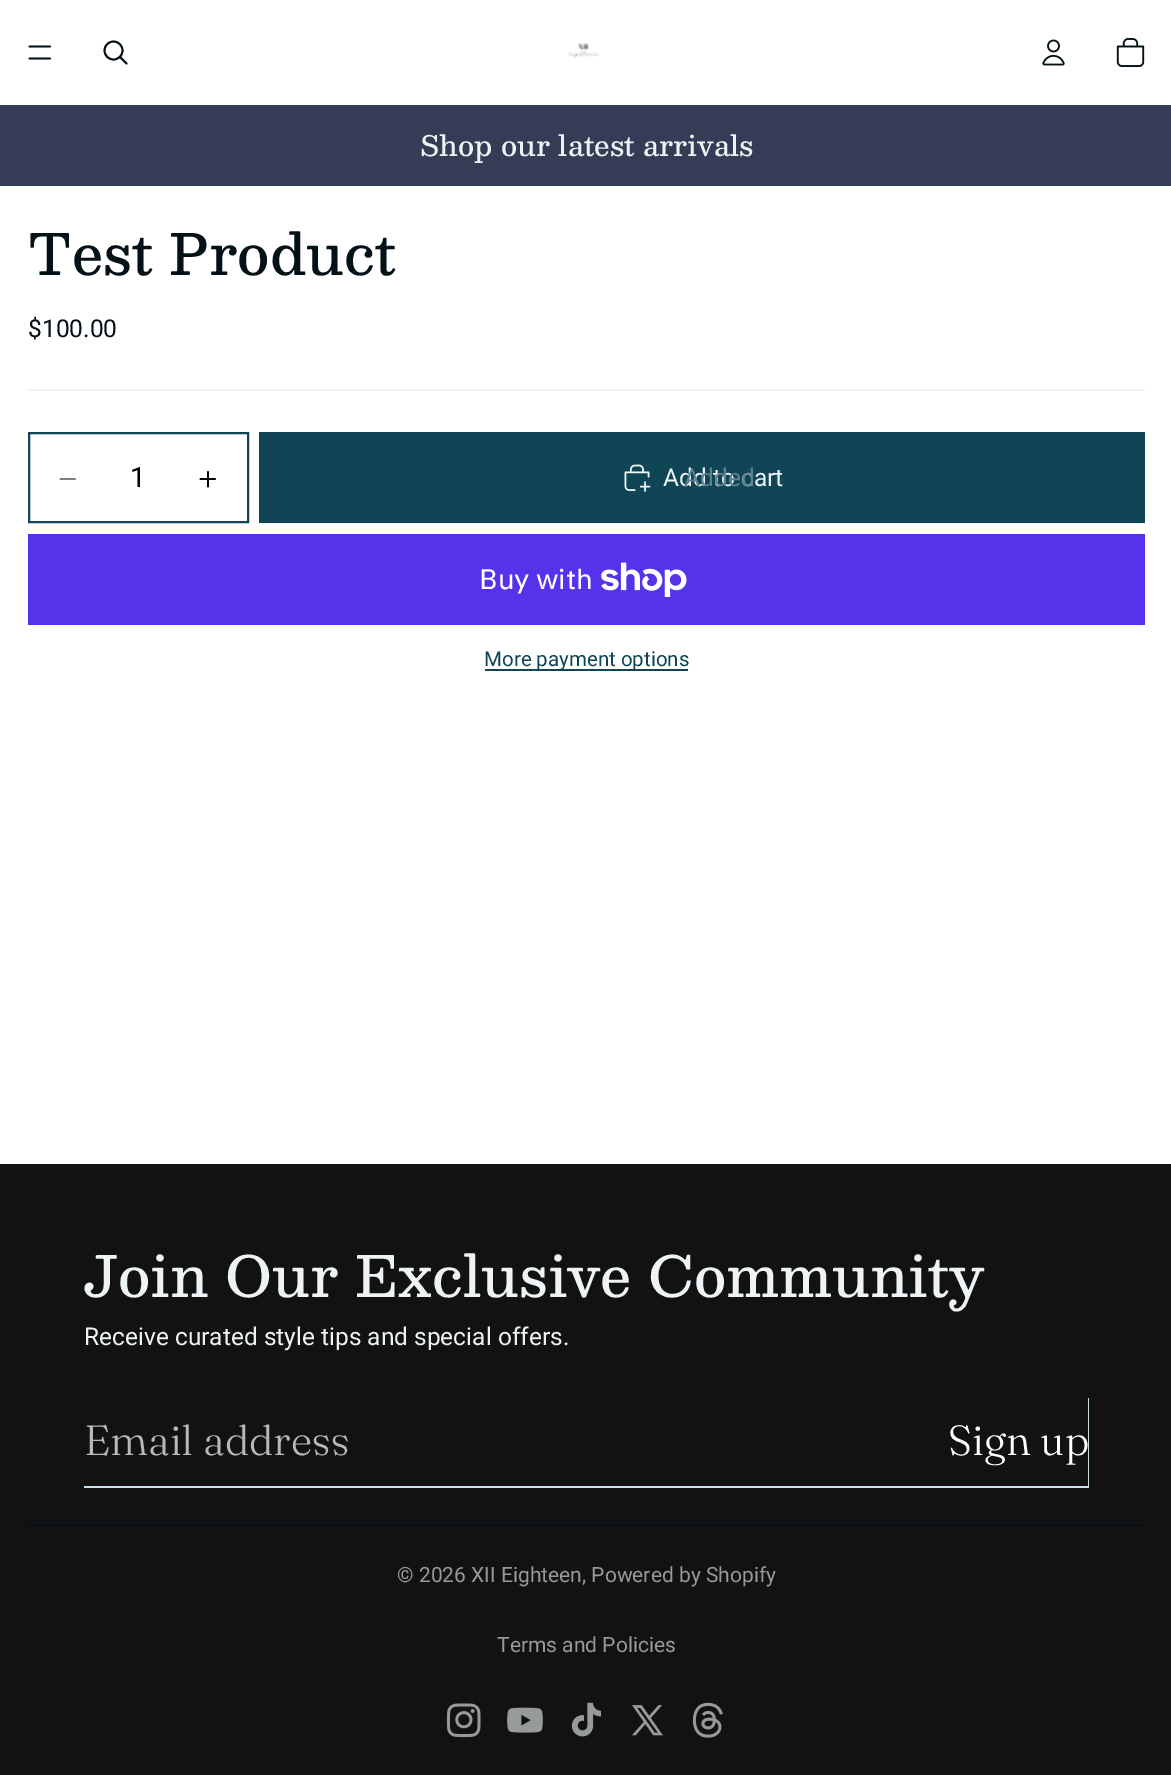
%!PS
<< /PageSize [1171 1775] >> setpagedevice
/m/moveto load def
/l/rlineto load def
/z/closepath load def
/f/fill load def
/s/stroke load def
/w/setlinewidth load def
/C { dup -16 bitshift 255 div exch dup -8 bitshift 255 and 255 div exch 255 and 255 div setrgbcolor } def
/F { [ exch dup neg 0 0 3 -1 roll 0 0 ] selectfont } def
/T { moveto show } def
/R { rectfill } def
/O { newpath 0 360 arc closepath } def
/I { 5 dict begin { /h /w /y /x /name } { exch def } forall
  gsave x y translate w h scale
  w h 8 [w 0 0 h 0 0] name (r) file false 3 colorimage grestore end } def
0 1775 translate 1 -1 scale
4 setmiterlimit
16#FFFFFF C
0 0 1171 1775 R
16#041116 C
1.7 w
1 setlinecap
29.5 46.5 m 20.5 0 l 29.5 58.5 m 20.5 0 l s
1.9 w
0 setlinecap
113.5 50.5 9 O s
1 setlinecap
1 setlinejoin
120.5 57.5 m 6 6 l s
(1.rgb) 568 43 31 15 I
(2.rgb) 1042 39 23 27 I
(3.rgb) 1116 38 29 29 I
16#343C56 C
0 105 1171 81 R
/Besley-Medium 28 F
16#EEF4F6 C
(Shop our latest arrivals) 420 156 T
/Besley-Medium 56 F
16#041116 C
(Test Product) 28 275 T
/Roboto-Regular 24.5 F
($100.00) 28 337 T
16#EEF4F6 C
28 389 1117 2 R
16#104556 C
2 w
0 setlinecap
0 setlinejoin
29 433 219 89 rectstroke
16#808080 C
1.7 w
1 setlinecap
60.5 479 m 14.5 0 l s
/Roboto-Regular 28 F
16#000000 C
(1) 130 487 T
200.5 479 m 14.5 0 l 208 472 m 0 14.5 l s
16#104556 C
259 432 886 91 R
(4.rgb) 624 464 27 28 I
/Roboto-Regular 24.5 F
16#EEF4F6 C
(Add to cart) 663 486 T
16#5D818D C
(Added) 684 486 T
16#5433EB C
28 534 1117 91 R
/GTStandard-Regular 28 F
16#FFFFFF C
(Buy with) 479 589 T
(5.rgb) 601 562 86 35 I
16#104556 C
485 669 203 2 R
/Roboto-Regular 20.5 F
(More payment options) 484 666 T
16#121212 C
0 1164 1171 611 R
/Besley-Medium 56 F
16#EEF4F6 C
(Join Our Exclusive Community) 84 1297 T
/Roboto-Regular 24.5 F
(Receive curated style tips and special offers.) 84 1345 T
16#CDDFE5 C
84 1486 m 0 2 l 1005 0 l 0 -90 l -1 0 l 0 88 l z f
/Fraunces-Light 42 F
16#B8B8B8 C
(Email address) 84 1455 T
16#FFFFFF C
(Sign up) 948 1455 T
16#041116 C
28 1524 1117 2 R
/Roboto-Regular 21 F
16#969A9B C
(© 2026 XII Eighteen, Powered by Shopify) 397 1582 T
(Terms and Policies) 497 1652 T
(6.rgb) 446 1703 35 35 I
(7.rgb) 507 1707 36 26 I
(8.rgb) 571 1702 31 35 I
(9.rgb) 632 1705 31 31 I
(10.rgb) 692 1702 31 36 I
showpage
